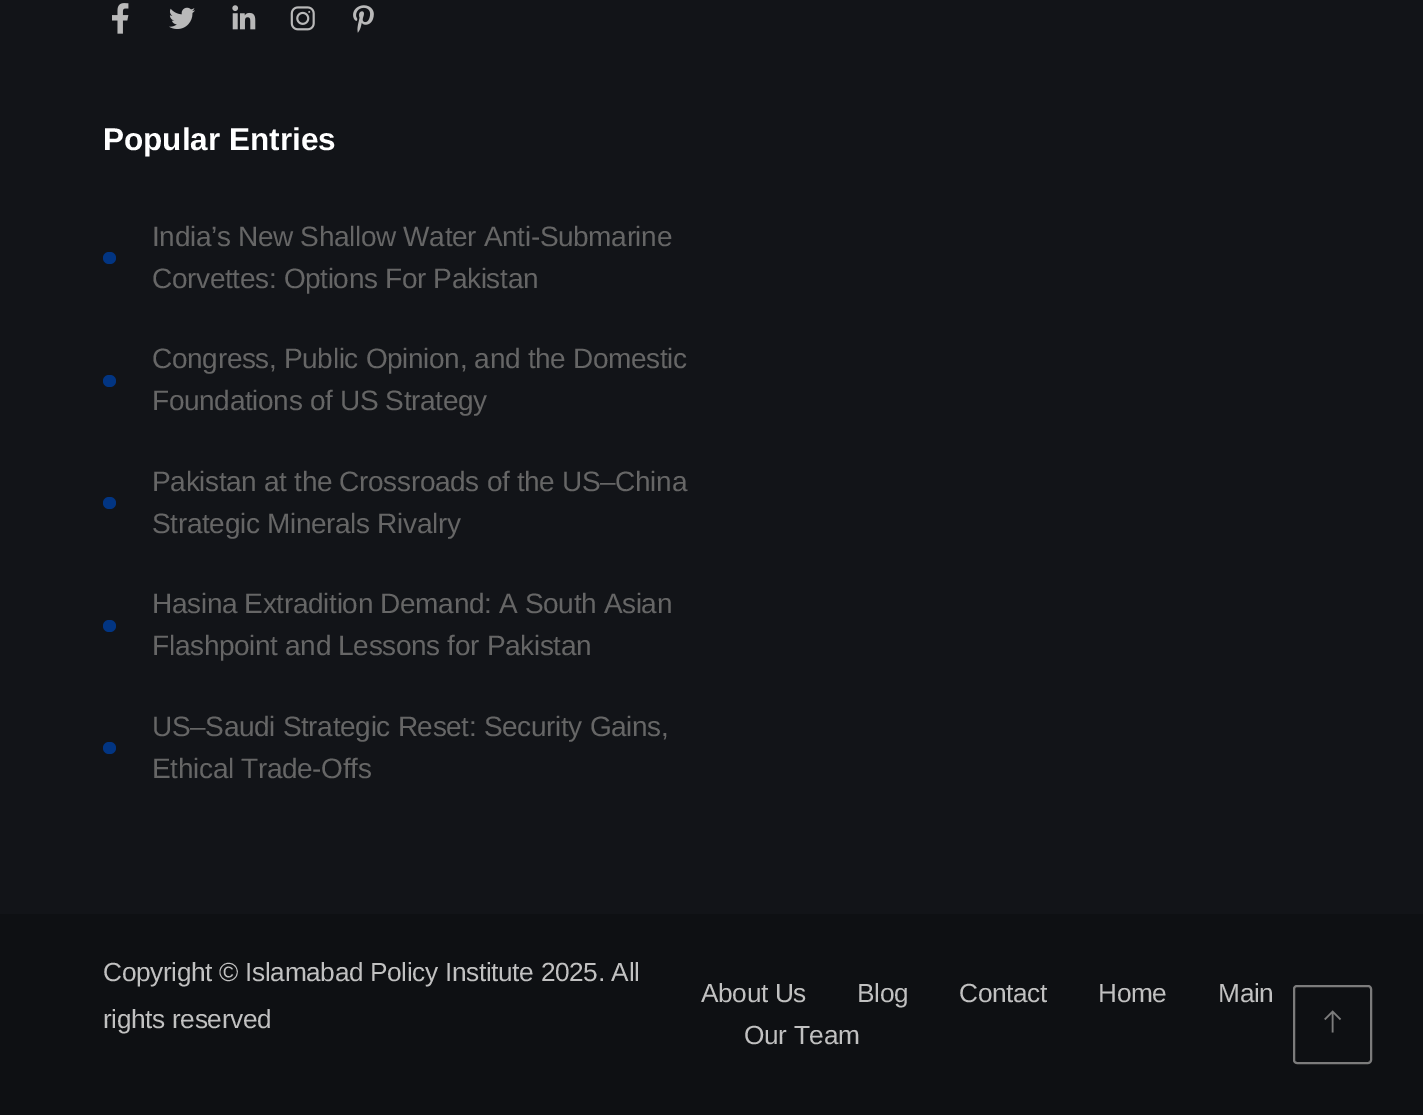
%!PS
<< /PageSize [1423 1115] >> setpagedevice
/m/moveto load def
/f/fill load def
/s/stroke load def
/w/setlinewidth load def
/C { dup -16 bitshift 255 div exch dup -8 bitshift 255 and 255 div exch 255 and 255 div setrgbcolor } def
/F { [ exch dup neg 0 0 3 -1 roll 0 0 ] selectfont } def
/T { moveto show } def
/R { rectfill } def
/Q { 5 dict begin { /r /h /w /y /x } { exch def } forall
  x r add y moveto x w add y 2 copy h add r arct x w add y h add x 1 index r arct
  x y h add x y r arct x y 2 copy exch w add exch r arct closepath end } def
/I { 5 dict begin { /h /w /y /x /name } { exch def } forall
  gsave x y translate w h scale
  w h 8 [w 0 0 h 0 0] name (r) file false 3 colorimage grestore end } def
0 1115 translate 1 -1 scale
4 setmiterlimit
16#121418 C
0 0 1423 1115 R
(1.rgb) 112 3 17 31 I
(2.rgb) 169 7 26 22 I
(3.rgb) 232 5 24 25 I
(4.rgb) 290 6 25 25 I
(5.rgb) 353 5 21 28 I
/LiberationSans-Bold 31.5 F
16#FFFFFF C
(Popular Entries) 103 150 T
16#023582 C
103 252 13 12 6 Q f
/LiberationSans-Regular 28 F
16#666666 C
152 246 m -.35 0 (India’s New Shallow Water Anti-Submarine) ashow
152 288 m -.35 0 (Corvettes: Options For Pakistan) ashow
16#023582 C
103 375 13 12 6 Q f
16#666666 C
152 368 m -.35 0 (Congress, Public Opinion, and the Domestic) ashow
152 410 m -.35 0 (Foundations of US Strategy) ashow
16#023582 C
103 497 13 12 6 Q f
16#666666 C
152 491 m -.35 0 (Pakistan at the Crossroads of the US–China) ashow
152 533 m -.35 0 (Strategic Minerals Rivalry) ashow
16#023582 C
103 620 13 12 6 Q f
16#666666 C
152 613 m -.35 0 (Hasina Extradition Demand: A South Asian) ashow
152 655 m -.35 0 (Flashpoint and Lessons for Pakistan) ashow
16#023582 C
103 742 13 12 6 Q f
16#666666 C
152 736 m -.35 0 (US–Saudi Strategic Reset: Security Gains,) ashow
152 778 m -.35 0 (Ethical Trade-Offs) ashow
16#0E1013 C
0 914 1423 201 R
/LiberationSans-Regular 26.25 F
16#C1C1C1 C
103 981 m -.35 0 (Copyright © Islamabad Policy Institute 2025. All) ashow
103 1028 m -.35 0 (rights reserved) ashow
701 1002 m -.35 0 (About Us) ashow
857 1002 m -.35 0 (Blog) ashow
959 1002 m -.35 0 (Contact) ashow
1098 1002 m -.35 0 (Home) ashow
1218 1002 m -.35 0 (Main) ashow
744 1044 m -.35 0 (Our Team) ashow
16#7C7C7C C
2 w
1294 986 77 77 3 Q s
(6.rgb) 1324 1010 18 23 I
showpage
